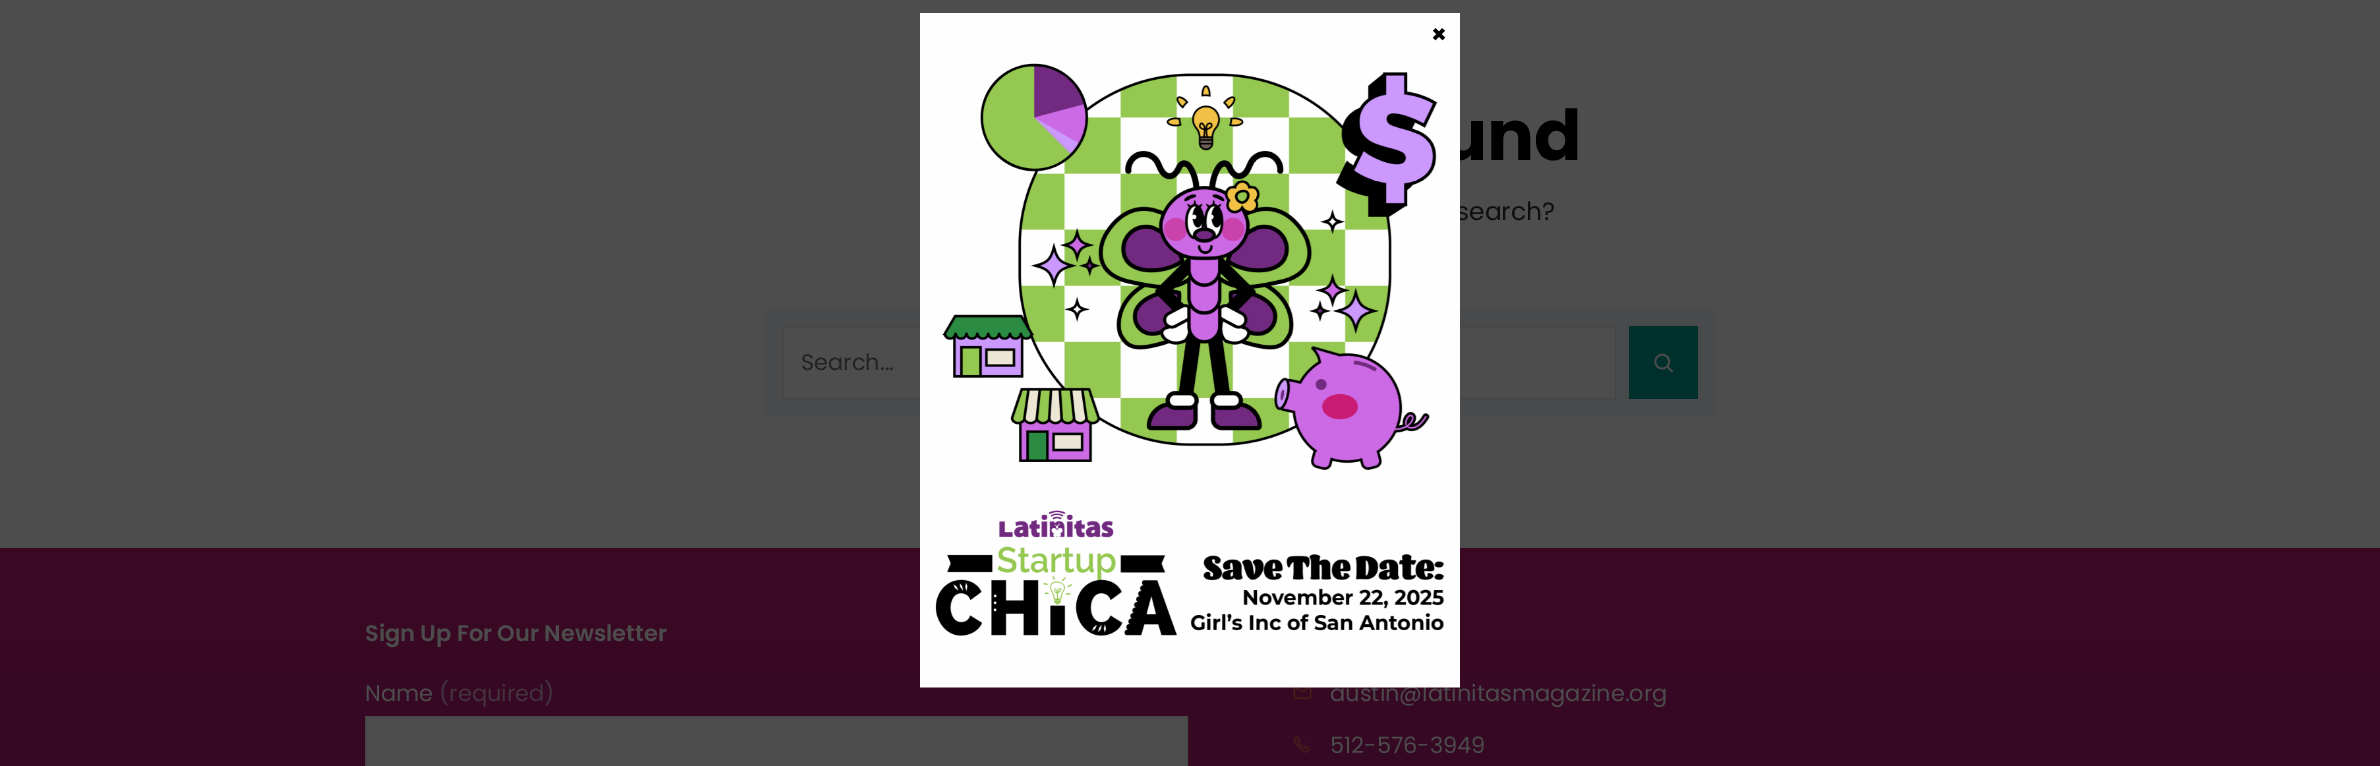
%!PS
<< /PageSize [2380 766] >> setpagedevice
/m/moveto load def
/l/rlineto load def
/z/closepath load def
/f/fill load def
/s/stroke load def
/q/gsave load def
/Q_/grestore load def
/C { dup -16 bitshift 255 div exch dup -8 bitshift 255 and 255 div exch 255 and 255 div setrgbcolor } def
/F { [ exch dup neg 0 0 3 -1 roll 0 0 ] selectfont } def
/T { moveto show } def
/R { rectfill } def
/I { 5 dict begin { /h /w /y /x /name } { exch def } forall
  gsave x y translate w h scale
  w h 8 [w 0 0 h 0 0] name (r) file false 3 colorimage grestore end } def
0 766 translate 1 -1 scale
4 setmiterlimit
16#4D4D4D C
0 0 2380 766 R
/Poppins-Bold 70 F
16#000000 C
(und) 1440 160 T
/Poppins-Regular 25 F
16#0F0F0F C
(search?) 1456 220 T
16#494A4B C
765 309 950 107 R
16#4D4D4D C
783.5 326.5 m 832 0 l 0 72 l -832 0 l z q f Q_
16#454545 C
s
q 0 548 m 2380 0 l 0 218 l -2380 0 l z clip newpath
<< /ShadingType 2 /ColorSpace /DeviceRGB /Coords [1240 547 1240 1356] /Extend [true true] /Function << /FunctionType 3 /Domain [0 1] /Functions [<< /FunctionType 2 /Domain [0 1] /C0 [.235 .031 .137] /C1 [.133 .051 .153] /N 1 >> << /FunctionType 2 /Domain [0 1] /C0 [.133 .051 .153] /C1 [.133 .051 .153] /N 1 >>] /Bounds [.99] /Encode [0 1 0 1] >> >> shfill Q_
(3.rgb) 1293 687 19 12 I
/Poppins-Regular 22.5 F
16#4C4C4C C
(austin@latinitasmagazine.org) 1330 701 T
(1.rgb) 920 13 540 675 I
/Poppins-Bold 25 F
16#000000 C
(×) 1431 43 T
/Poppins-Regular 22.5 F
16#232323 C
(Search...) 801 370 T
16#00302C C
1629 326 69 73 R
(2.rgb) 1654 353 20 20 I
/Poppins-SemiBold 22.5 F
16#4C4C4C C
(Sign Up For Our Newsletter) 365 641 T
/Poppins-Regular 22.5 F
(Name) 365 701 T
16#44323C C
(\(required\)) 439 701 T
16#4D4D4D C
365.5 716.5 m 822 0 l 0 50 l -822 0 l z q f Q_
16#454545 C
s
(4.rgb) 1293 736 18 17 I
16#4C4C4C C
(512-576-3949) 1330 753 T
showpage
